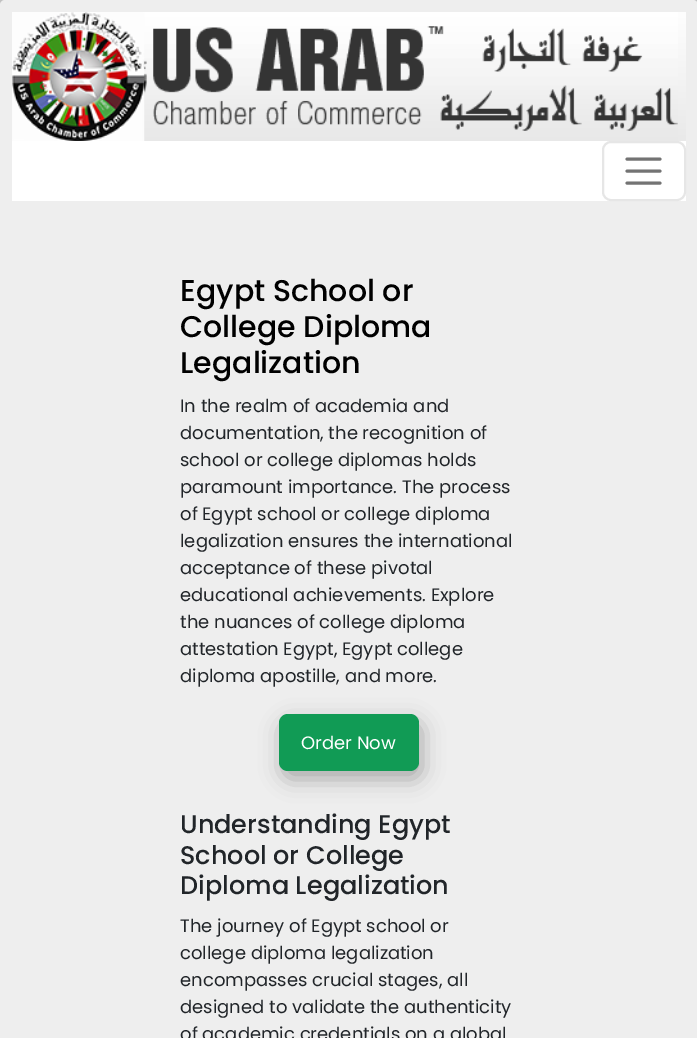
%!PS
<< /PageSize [697 1038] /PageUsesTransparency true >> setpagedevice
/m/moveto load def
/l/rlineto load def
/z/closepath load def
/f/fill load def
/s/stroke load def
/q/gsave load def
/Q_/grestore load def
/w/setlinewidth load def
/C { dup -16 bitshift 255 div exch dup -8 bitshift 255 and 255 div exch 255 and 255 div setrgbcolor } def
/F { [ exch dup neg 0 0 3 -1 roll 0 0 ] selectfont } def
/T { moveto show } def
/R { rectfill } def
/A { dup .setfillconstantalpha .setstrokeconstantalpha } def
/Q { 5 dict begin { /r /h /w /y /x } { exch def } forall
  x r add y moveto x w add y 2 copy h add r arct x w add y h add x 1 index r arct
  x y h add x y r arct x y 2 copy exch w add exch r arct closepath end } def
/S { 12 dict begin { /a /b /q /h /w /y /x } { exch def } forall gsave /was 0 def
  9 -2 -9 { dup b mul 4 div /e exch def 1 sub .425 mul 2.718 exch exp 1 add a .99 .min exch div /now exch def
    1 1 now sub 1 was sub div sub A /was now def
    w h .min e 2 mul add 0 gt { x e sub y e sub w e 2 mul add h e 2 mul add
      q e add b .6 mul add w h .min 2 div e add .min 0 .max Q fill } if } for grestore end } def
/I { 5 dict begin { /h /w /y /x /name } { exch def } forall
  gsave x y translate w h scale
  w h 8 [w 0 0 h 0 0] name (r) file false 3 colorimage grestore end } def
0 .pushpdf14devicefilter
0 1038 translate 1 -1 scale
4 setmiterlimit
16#C1C1C1 C
0 0 697 1038 R
16#EEEEEE C
0 0 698 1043 5 Q f
q 12 12 m 674 0 l 0 129 l -674 0 l z clip newpath
<< /ShadingType 2 /ColorSpace /DeviceRGB /Coords [349 12 349 141] /Extend [true true] /Function << /FunctionType 2 /Domain [0 1] /C0 [.996 .996 .996] /C1 [.914 .914 .914] /N 1 >> >> shfill Q_
(1.rgb) 12 12 666 129 I
16#FFFFFF C
12 141 674 60 R
16#E6E6E6 C
2 w
603 142 82 58 8 Q s
16#737373 C
3 w
1 setlinecap
627 159 m 33 0 l 627 171 m 33 0 l 627 183 m 33 0 l s
/Poppins-Medium 30 F
16#000000 C
(Egypt School or) 180 301 T
(College Diploma) 180 337 T
(Legalization) 180 373 T
/Poppins-Regular 18 F
16#212529 C
(In the realm of academia and) 180 412 T
(documentation, the recognition of) 180 439 T
(school or college diplomas holds) 180 466 T
(paramount importance. The process) 180 493 T
(of Egypt school or college diploma) 180 520 T
(legalization ensures the international) 180 547 T
(acceptance of these pivotal) 180 574 T
(educational achievements. Explore) 180 601 T
(the nuances of college diploma) 180 628 T
(attestation Egypt, Egypt college) 180 655 T
(diploma apostille, and more.) 180 682 T
16#000000 C
282 722 140 57 9 11 .3 S
16#119B55 C
279 714 140 57 9 Q f
16#FFFFFF C
(Order Now) 301 749 T
/Poppins-Medium 25.5 F
16#212529 C
(Understanding Egypt) 180 833 T
(School or College) 180 864 T
(Diploma Legalization) 180 894 T
/Poppins-Regular 18 F
(The journey of Egypt school or) 180 932 T
(college diploma legalization) 180 959 T
(encompasses crucial stages, all) 180 986 T
(designed to validate the authenticity) 180 1013 T
(of academic credentials on a global) 180 1040 T
.poppdf14devicefilter showpage
